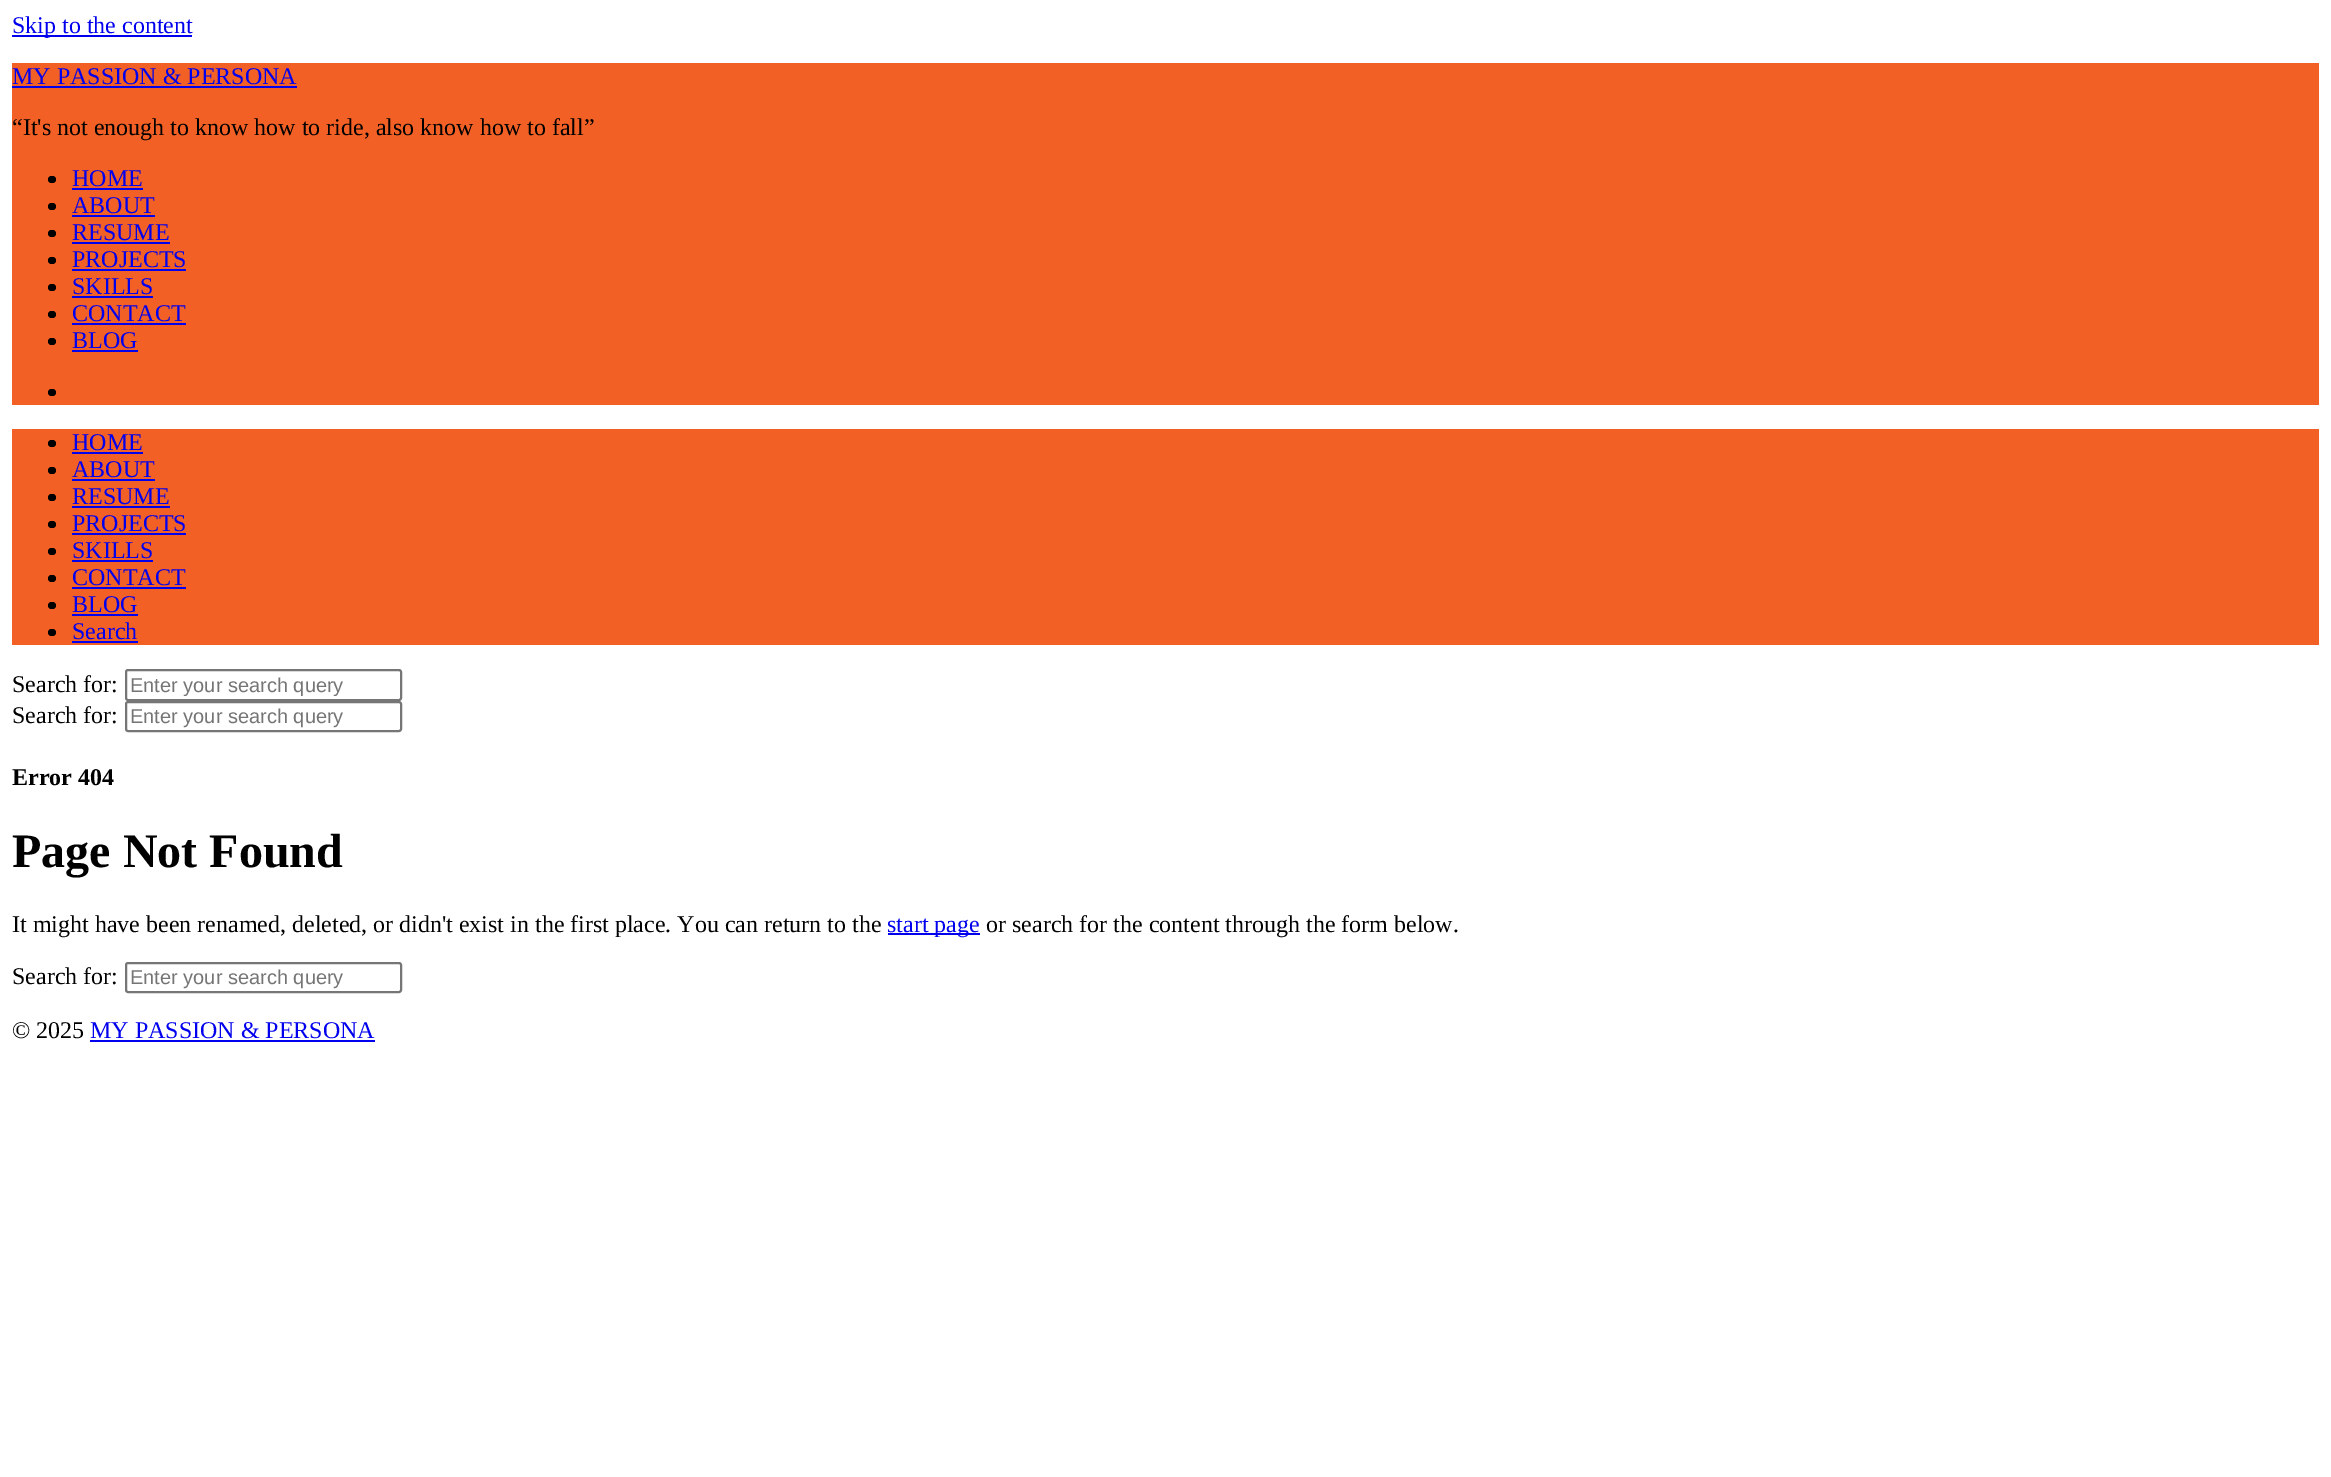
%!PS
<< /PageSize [2331 1477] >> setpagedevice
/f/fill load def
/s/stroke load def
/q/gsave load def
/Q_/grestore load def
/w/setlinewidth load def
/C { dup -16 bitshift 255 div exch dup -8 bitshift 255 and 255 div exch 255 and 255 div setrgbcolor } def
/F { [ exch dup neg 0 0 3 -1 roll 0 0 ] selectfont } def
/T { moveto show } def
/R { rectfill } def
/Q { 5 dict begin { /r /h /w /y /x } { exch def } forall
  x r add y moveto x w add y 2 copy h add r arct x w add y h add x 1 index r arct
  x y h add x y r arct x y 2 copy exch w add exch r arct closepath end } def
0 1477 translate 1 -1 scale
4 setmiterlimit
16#FFFFFF C
0 0 2331 1477 R
16#0000EE C
12 35 180 2 R
/LiberationSerif-Regular 24 F
(Skip to the content) 12 33 T
16#F26026 C
12 63 2307 342 R
16#0000EE C
(MY PASSION & PERSONA) 12 84 T
12 86 285 2 R
16#000000 C
(“It's not enough to know how to ride, also know how to fall”) 12 135 T
48 176 8 7 3.5 Q f
16#0000EE C
(HOME) 72 186 T
72 188 71 2 R
16#000000 C
48 203 8 7 3.5 Q f
16#0000EE C
(ABOUT) 72 213 T
72 215 83 2 R
16#000000 C
48 230 8 7 3.5 Q f
16#0000EE C
(RESUME) 72 240 T
72 242 98 2 R
16#000000 C
48 257 8 7 3.5 Q f
16#0000EE C
(PROJECTS) 72 267 T
72 269 114 2 R
16#000000 C
48 284 8 7 3.5 Q f
16#0000EE C
(SKILLS) 72 294 T
72 296 81 2 R
16#000000 C
48 311 8 7 3.5 Q f
16#0000EE C
(CONTACT) 72 321 T
72 323 114 2 R
16#000000 C
48 338 8 7 3.5 Q f
16#0000EE C
(BLOG) 72 348 T
72 350 66 2 R
16#000000 C
48 389 8 7 3.5 Q f
16#F26026 C
12 429 2307 216 R
16#000000 C
48 440 8 7 3.5 Q f
16#0000EE C
(HOME) 72 450 T
72 452 71 2 R
16#000000 C
48 467 8 7 3.5 Q f
16#0000EE C
(ABOUT) 72 477 T
72 479 83 2 R
16#000000 C
48 494 8 7 3.5 Q f
16#0000EE C
(RESUME) 72 504 T
72 506 98 2 R
16#000000 C
48 521 8 7 3.5 Q f
16#0000EE C
(PROJECTS) 72 531 T
72 533 114 2 R
16#000000 C
48 548 8 7 3.5 Q f
16#0000EE C
(SKILLS) 72 558 T
72 560 81 2 R
16#000000 C
48 575 8 7 3.5 Q f
16#0000EE C
(CONTACT) 72 585 T
72 587 114 2 R
16#000000 C
48 602 8 7 3.5 Q f
16#0000EE C
(BLOG) 72 612 T
72 614 66 2 R
16#000000 C
48 629 8 7 3.5 Q f
16#0000EE C
(Search) 72 639 T
72 641 66 2 R
16#000000 C
(Search for:) 12 692 T
16#767676 C
2 w
126 670 275 30 2 Q s
q
131 674 246 22 rectclip
/LiberationSans-Regular 20 F
16#757575 C
(Enter your search query) 130 692 T
Q_
16#000000 C
(Search for:) 12 723 T
16#767676 C
126 702 275 29 2 Q s
/LiberationSans-Regular 20 F
16#757575 C
(Enter your search query) 130 723 T
/LiberationSerif-Bold 24 F
16#000000 C
(Error 404) 12 785 T
/LiberationSerif-Bold 48 F
(Page Not Found) 12 867 T
/LiberationSerif-Regular 24 F
(It might have been renamed, deleted, or didn't exist in the first place. You can return to the) 12 932 T
16#0000EE C
888 933 92 2 R
(start page) 887 932 T
16#000000 C
(or search for the content through the form below.) 986 932 T
(Search for:) 12 984 T
16#767676 C
126 963 275 29 2 Q s
/LiberationSans-Regular 20 F
16#757575 C
(Enter your search query) 130 984 T
/LiberationSerif-Regular 24 F
16#000000 C
(© 2025) 12 1038 T
16#0000EE C
(MY PASSION & PERSONA) 90 1038 T
90 1040 285 2 R
showpage
